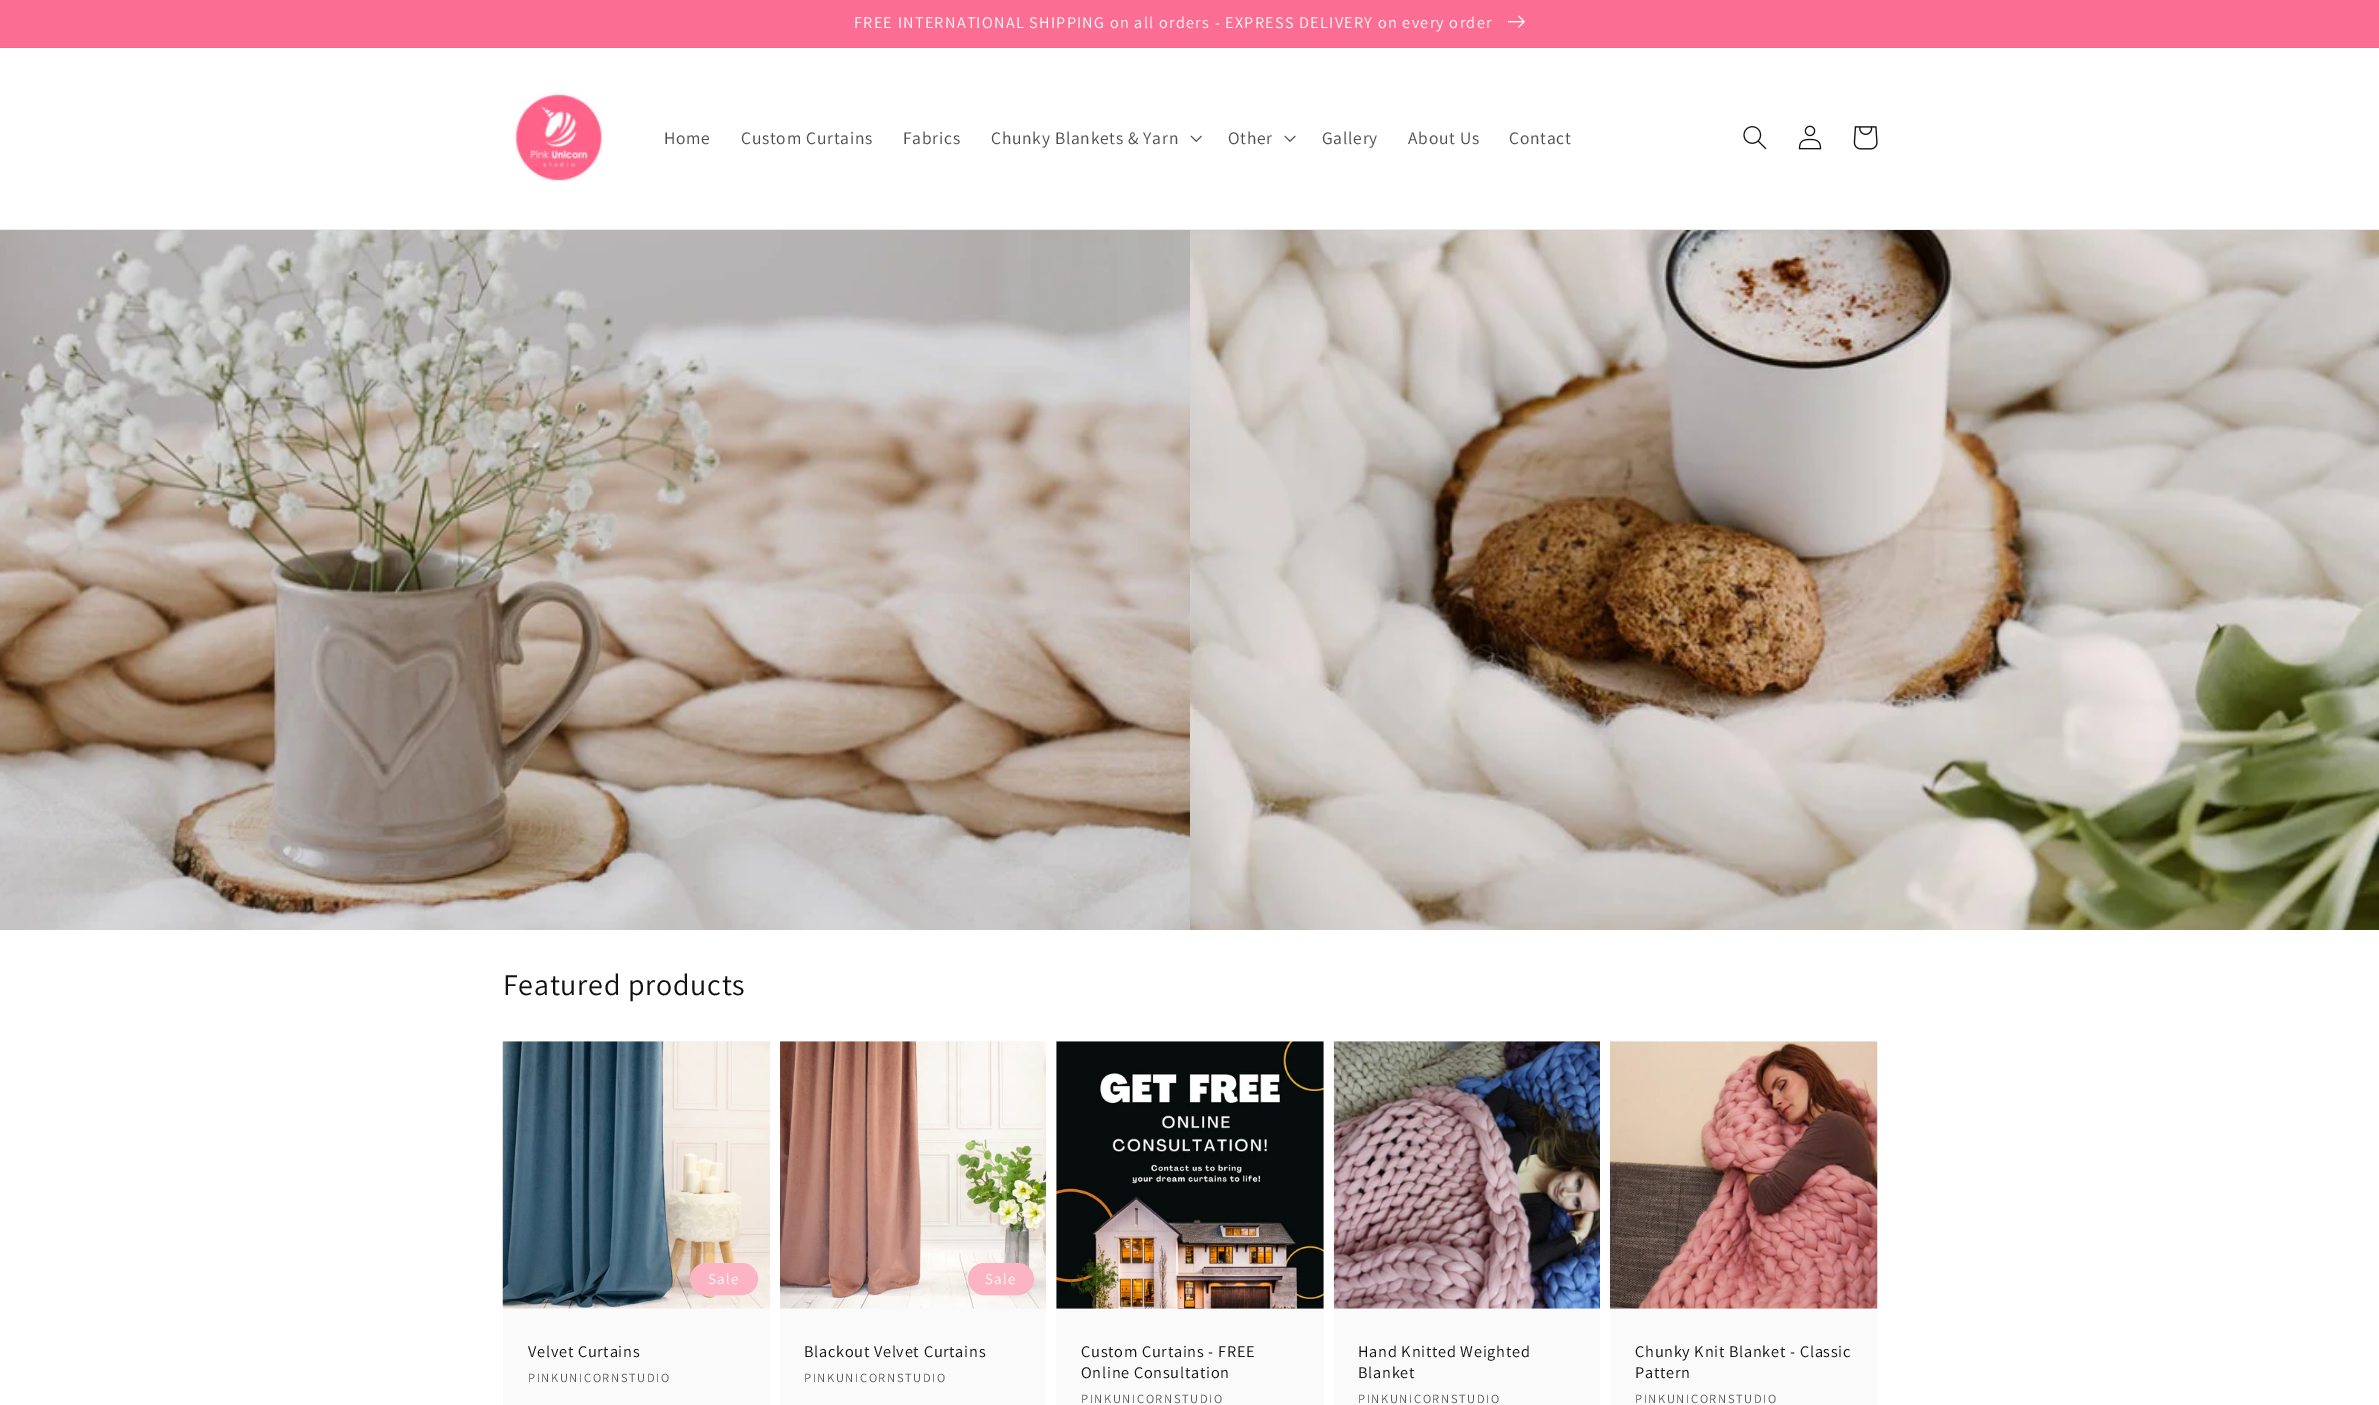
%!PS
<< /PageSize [2379 1405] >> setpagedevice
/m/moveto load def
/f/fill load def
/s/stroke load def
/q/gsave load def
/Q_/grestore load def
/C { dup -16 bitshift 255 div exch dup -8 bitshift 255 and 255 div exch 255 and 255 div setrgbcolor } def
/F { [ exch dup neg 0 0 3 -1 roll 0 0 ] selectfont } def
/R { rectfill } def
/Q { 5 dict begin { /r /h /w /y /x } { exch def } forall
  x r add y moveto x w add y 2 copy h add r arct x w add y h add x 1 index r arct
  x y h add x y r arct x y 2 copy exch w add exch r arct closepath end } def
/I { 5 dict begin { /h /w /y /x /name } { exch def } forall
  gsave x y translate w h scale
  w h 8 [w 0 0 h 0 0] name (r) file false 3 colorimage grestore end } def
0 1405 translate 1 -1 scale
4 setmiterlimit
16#FFFFFF C
0 0 2379 1405 R
16#FC648C C
0 47 2379 1 R
16#FC7095 C
0 46 2379 1 R
16#FC6D93 C
0 0 2379 46 R
/Assistant-Regular 16.25 F
16#FFFFFF C
854 28 m 1.25 0 (FREE INTERNATIONAL SHIPPING on all orders - EXPRESS DELIVERY on every order) ashow
(1.rgb) 1508 15 17 13 I
16#ECECEC C
0 229 2379 1 R
(2.rgb) 513 91 91 91 I
/Assistant-Regular 17.5 F
16#4D4D4D C
664 144 m .75 0 (Home) ashow
741 144 m .75 0 (Custom Curtains) ashow
903 144 m .75 0 (Fabrics) ashow
991 144 m .75 0 (Chunky Blankets & Yarn) ashow
(3.rgb) 1190 135 12 7 I
1228 144 m .75 0 (Other) ashow
(4.rgb) 1284 135 12 7 I
1322 144 m .75 0 (Gallery) ashow
1408 144 m .75 0 (About Us) ashow
1509 144 m .75 0 (Contact) ashow
(5.rgb) 1743 126 24 24 I
(6.rgb) 1798 125 24 25 I
(7.rgb) 1853 126 25 24 I
(8.rgb) 0 230 1190 700 I
(9.rgb) 1190 230 1189 700 I
/Assistant-Regular 30 F
16#121212 C
503 995 m .75 0 (Featured products) ashow
16#FAFAFA C
503 1041 267 364 R
(10.rgb) 502 1041 268 268 I
16#FCB4C4 C
690.5 1263.5 67 31 15.5 Q q f Q_
s
/Assistant-Regular 15 F
16#FFFFFF C
708 1284 m 1.25 0 (Sale) ashow
/Assistant-Regular 16.25 F
16#121212 C
528 1357 m .75 0 (Velvet Curtains) ashow
/Assistant-Regular 12.5 F
16#585858 C
528 1382 m 1.6 0 (PINKUNICORNSTUDIO) ashow
16#FAFAFA C
780 1041 266 364 R
(11.rgb) 780 1041 267 268 I
16#FCB4C4 C
968.5 1263.5 65 31 15.5 Q q f Q_
s
/Assistant-Regular 15 F
16#FFFFFF C
985 1284 m 1.25 0 (Sale) ashow
/Assistant-Regular 16.25 F
16#121212 C
804 1357 m .75 0 (Blackout Velvet Curtains) ashow
/Assistant-Regular 12.5 F
16#585858 C
804 1382 m 1.6 0 (PINKUNICORNSTUDIO) ashow
16#FAFAFA C
1056 1041 268 364 R
(12.rgb) 1056 1041 268 268 I
/Assistant-Regular 16.25 F
16#121212 C
1081 1357 m .75 0 (Custom Curtains - FREE) ashow
1081 1378 m .75 0 (Online Consultation) ashow
/Assistant-Regular 12.5 F
16#585858 C
1081 1403 m 1.6 0 (PINKUNICORNSTUDIO) ashow
16#FAFAFA C
1334 1041 266 364 R
(13.rgb) 1333 1041 267 268 I
/Assistant-Regular 16.25 F
16#121212 C
1358 1357 m .75 0 (Hand Knitted Weighted) ashow
1358 1378 m .75 0 (Blanket) ashow
/Assistant-Regular 12.5 F
16#585858 C
1358 1403 m 1.6 0 (PINKUNICORNSTUDIO) ashow
16#FAFAFA C
1610 1041 268 364 R
(14.rgb) 1610 1041 268 268 I
/Assistant-Regular 16.25 F
16#121212 C
1635 1357 m .75 0 (Chunky Knit Blanket - Classic) ashow
1635 1378 m .75 0 (Pattern) ashow
/Assistant-Regular 12.5 F
16#585858 C
1635 1403 m 1.6 0 (PINKUNICORNSTUDIO) ashow
showpage
